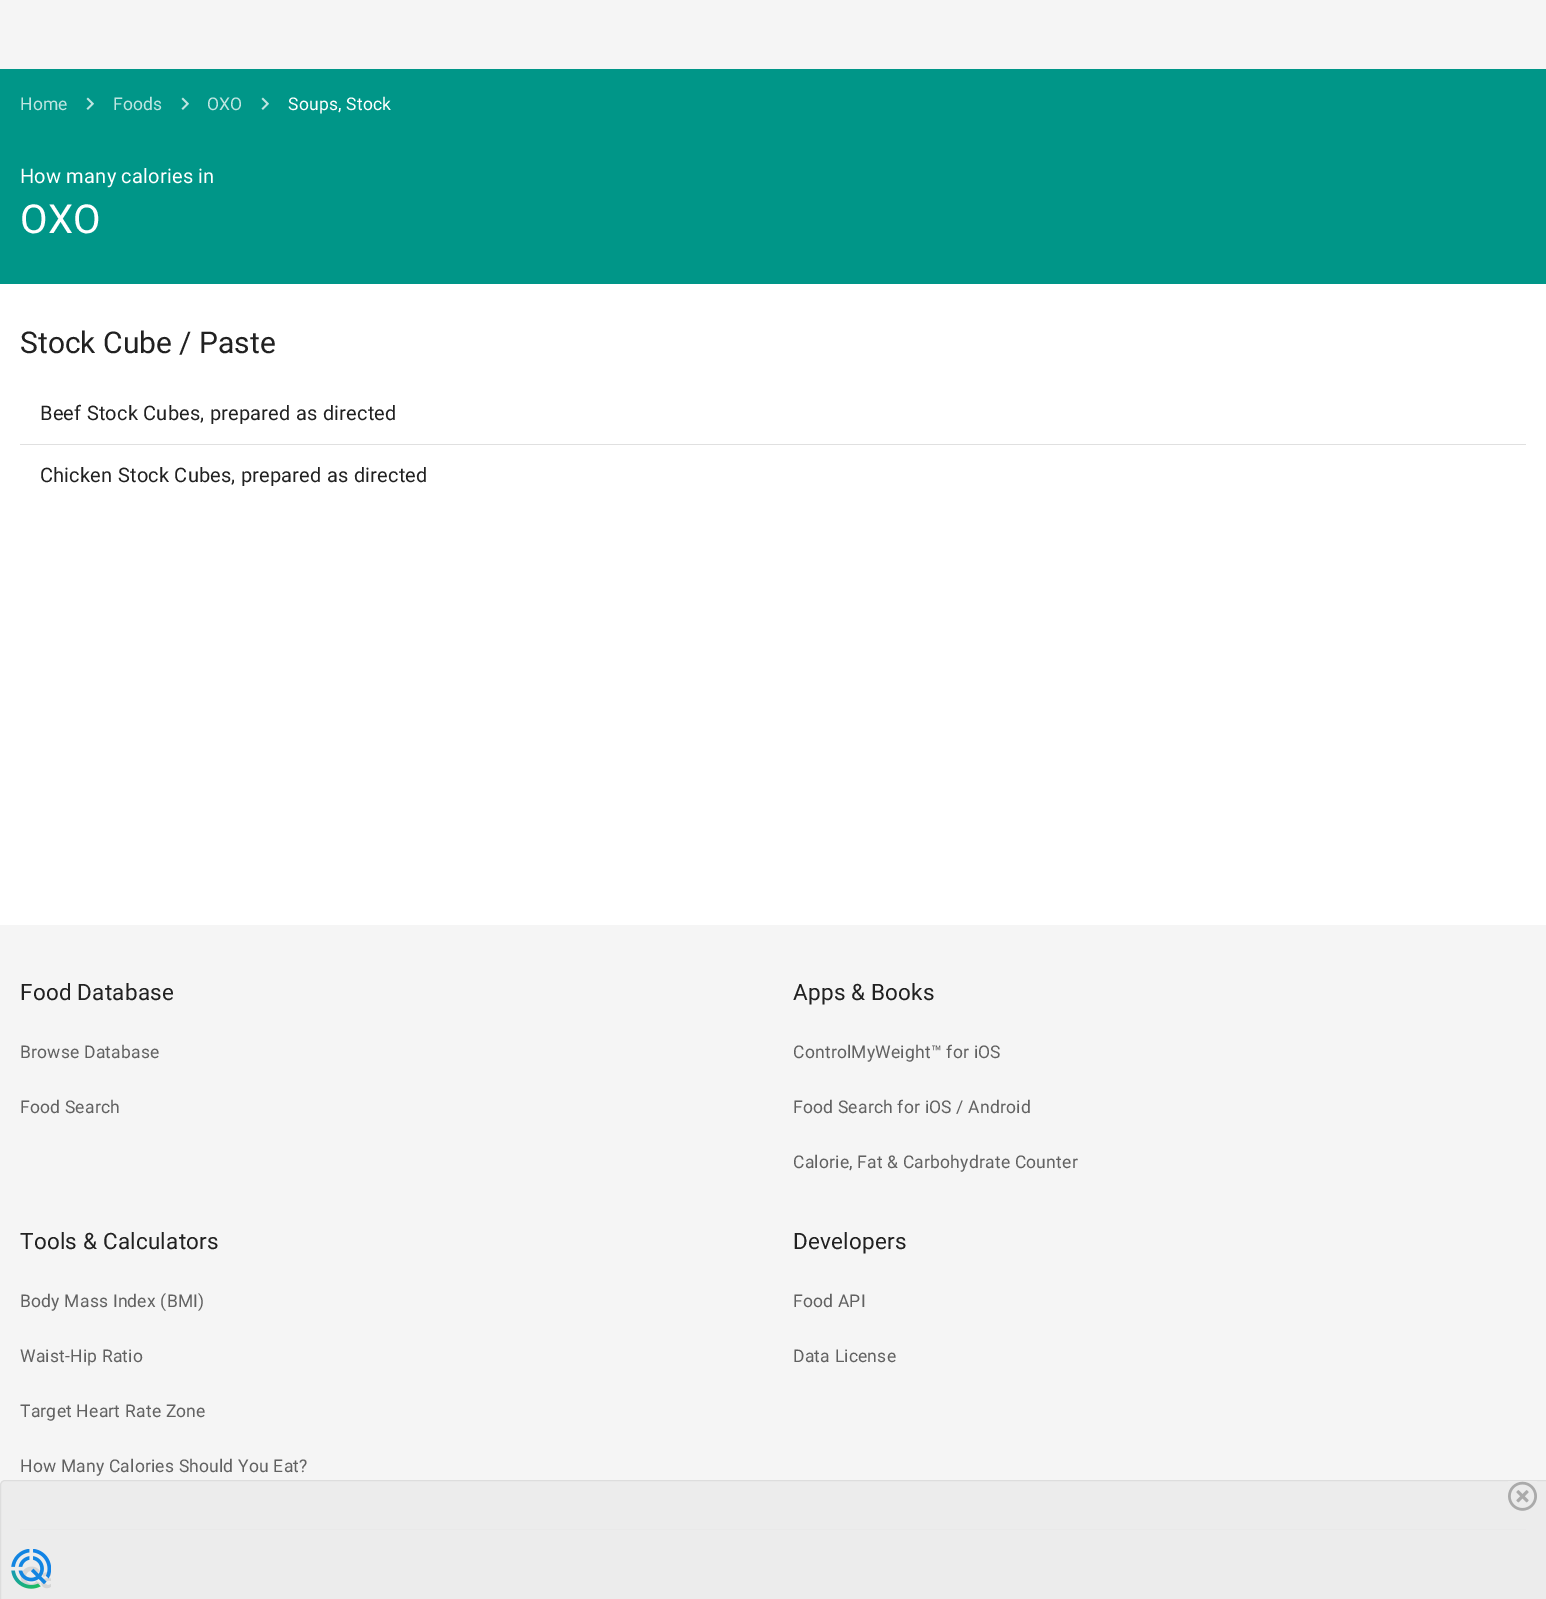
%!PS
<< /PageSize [1546 1599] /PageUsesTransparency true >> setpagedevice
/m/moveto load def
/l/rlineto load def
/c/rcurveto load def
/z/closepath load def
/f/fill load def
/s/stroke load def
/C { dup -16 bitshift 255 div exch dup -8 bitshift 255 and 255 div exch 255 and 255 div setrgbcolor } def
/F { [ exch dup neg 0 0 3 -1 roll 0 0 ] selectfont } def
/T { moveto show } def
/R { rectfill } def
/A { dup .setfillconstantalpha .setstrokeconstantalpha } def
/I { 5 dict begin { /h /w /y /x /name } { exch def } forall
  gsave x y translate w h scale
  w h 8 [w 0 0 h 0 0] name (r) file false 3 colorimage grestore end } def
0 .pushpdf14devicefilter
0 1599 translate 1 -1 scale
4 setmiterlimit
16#FFFFFF C
0 0 1546 1599 R
16#F5F5F5 C
0 0 1546 69 R
16#009688 C
0 69 1546 215 R
/Roboto-Regular 17.5 F
16#BFE5E1 C
20 110 m .2 0 (Home) ashow
(1.rgb) 86 97 8 13 I
113 110 m .2 0 (Foods) ashow
(1.rgb) 181 97 8 13 I
207 110 m .2 0 (OXO) ashow
(1.rgb) 261 97 8 13 I
16#FFFFFF C
288 110 m .2 0 (Soups, Stock) ashow
/Roboto-Regular 20 F
20 183 m .2 0 (How many calories in) ashow
/Roboto-Regular 40 F
(OXO) 20 233 T
/Roboto-Regular 30 F
16#212121 C
(Stock Cube / Paste) 20 353 T
/Roboto-Regular 20 F
40 420 m .2 0 (Beef Stock Cubes, prepared as directed) ashow
16#E0E0E0 C
20 444 1506 1 R
16#212121 C
40 482 m .2 0 (Chicken Stock Cubes, prepared as directed) ashow
16#F5F5F5 C
0 925 1546 674 R
/Roboto-Regular 22.5 F
16#212121 C
20 1000 m .2 0 (Food Database) ashow
/Roboto-Regular 17.5 F
16#616161 C
20 1058 m .2 0 (Browse Database) ashow
20 1113 m .2 0 (Food Search) ashow
/Roboto-Regular 22.5 F
16#212121 C
793 1000 m .2 0 (Apps & Books) ashow
/Roboto-Regular 17.5 F
16#616161 C
793 1058 m .2 0 (ControlMyWeight™ for iOS) ashow
793 1113 m .2 0 (Food Search for iOS / Android) ashow
793 1168 m .2 0 (Calorie, Fat & Carbohydrate Counter) ashow
/Roboto-Regular 22.5 F
16#212121 C
20 1249 m .2 0 (Tools & Calculators) ashow
/Roboto-Regular 17.5 F
16#616161 C
20 1307 m .2 0 (Body Mass Index \(BMI\)) ashow
20 1362 m .2 0 (Waist-Hip Ratio) ashow
20 1417 m .2 0 (Target Heart Rate Zone) ashow
20 1472 m .2 0 (How Many Calories Should You Eat?) ashow
/Roboto-Regular 22.5 F
16#212121 C
793 1249 m .2 0 (Developers) ashow
/Roboto-Regular 17.5 F
16#616161 C
793 1307 m .2 0 (Food API) ashow
793 1362 m .2 0 (Data License) ashow
16#D8D8D8 C
20 1529 1506 1 R
0.89 A
16#EBEBEB C
5 1480.5 m 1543.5 0 l 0 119 l -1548 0 l 0 -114.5 l 0 -2.5 2 -4.5 4.5 -4.5 c z f
1 A
16#DDDDDD C
5 1480.5 m 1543.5 0 l 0 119 l -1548 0 l 0 -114.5 l 0 -2.5 2 -4.5 4.5 -4.5 c z s
(2.rgb) 1508 1481 29 30 I
(3.rgb) 11 1549 40 40 I
.poppdf14devicefilter showpage
